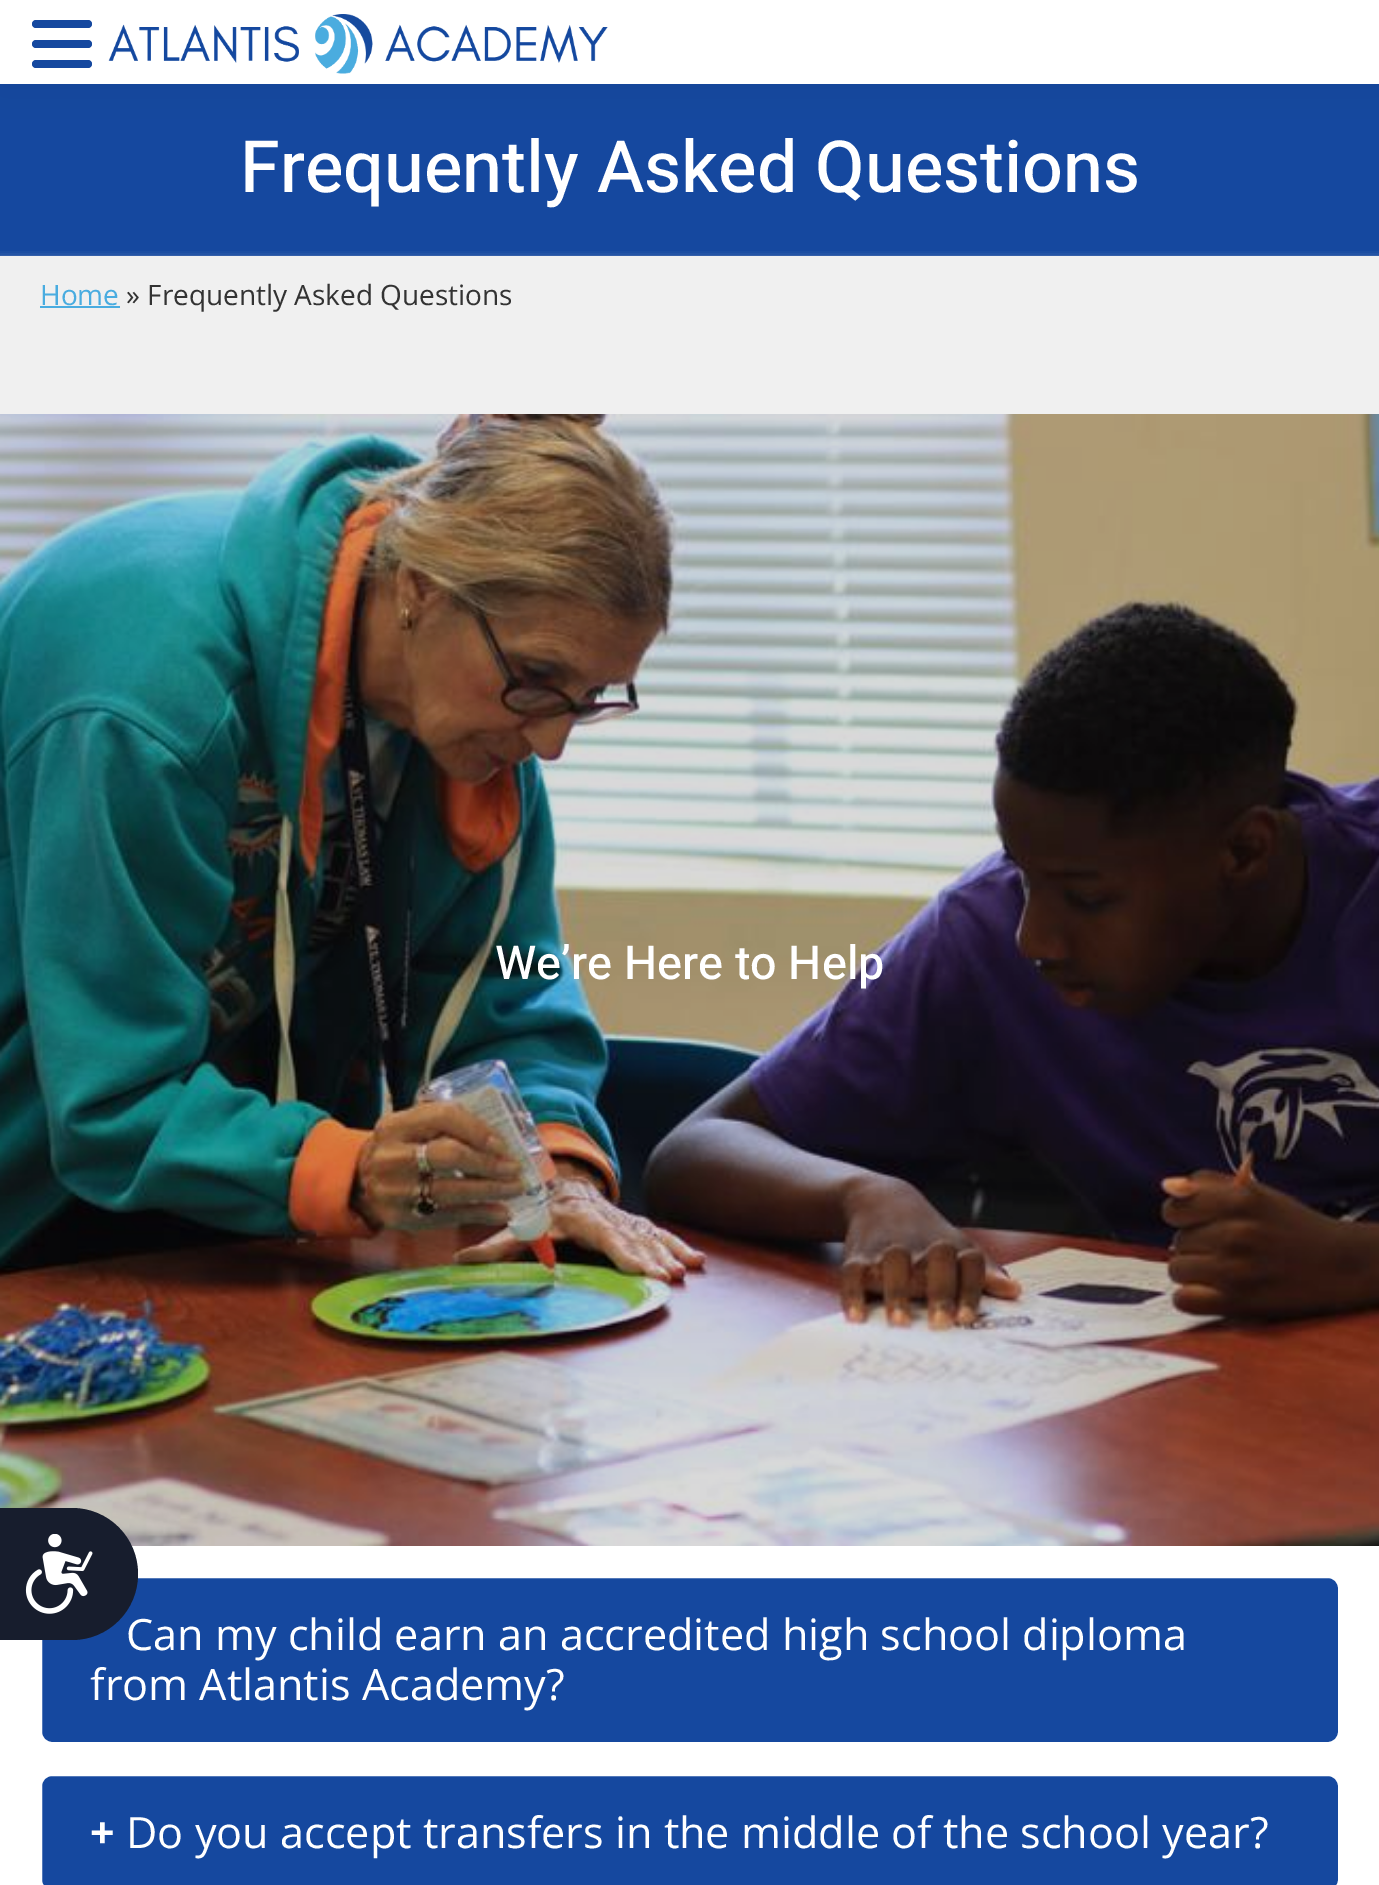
%!PS
<< /PageSize [1379 1885] /PageUsesTransparency true >> setpagedevice
/m/moveto load def
/l/rlineto load def
/c/rcurveto load def
/z/closepath load def
/f/fill load def
/s/stroke load def
/q/gsave load def
/Q_/grestore load def
/w/setlinewidth load def
/C { dup -16 bitshift 255 div exch dup -8 bitshift 255 and 255 div exch 255 and 255 div setrgbcolor } def
/F { [ exch dup neg 0 0 3 -1 roll 0 0 ] selectfont } def
/T { moveto show } def
/R { rectfill } def
/A { dup .setfillconstantalpha .setstrokeconstantalpha } def
/Q { 5 dict begin { /r /h /w /y /x } { exch def } forall
  x r add y moveto x w add y 2 copy h add r arct x w add y h add x 1 index r arct
  x y h add x y r arct x y 2 copy exch w add exch r arct closepath end } def
/S { 12 dict begin { /a /b /q /h /w /y /x } { exch def } forall gsave /was 0 def
  9 -2 -9 { dup b mul 4 div /e exch def 1 sub .425 mul 2.718 exch exp 1 add a .99 .min exch div /now exch def
    1 1 now sub 1 was sub div sub A /was now def
    w h .min e 2 mul add 0 gt { x e sub y e sub w e 2 mul add h e 2 mul add
      q e add b .6 mul add w h .min 2 div e add .min 0 .max Q fill } if } for grestore end } def
/I { 5 dict begin { /h /w /y /x /name } { exch def } forall
  gsave x y translate w h scale
  w h 8 [w 0 0 h 0 0] name (r) file false 3 colorimage grestore end } def
0 .pushpdf14devicefilter
0 1885 translate 1 -1 scale
4 setmiterlimit
16#FFFFFF C
0 0 1379 1885 R
16#15489F C
0 84 1379 172 R
16#000000 C
0 0 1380 84 0 20 .05 S
16#FFFFFF C
0 0 1379 84 R
16#15489F C
32 20 60 8 4 Q f
32 40 60 8 4 Q f
32 60 60 8 4 Q f
(1.rgb) 108 14 500 60 I
/Heebo-Medium 72 F
16#FFFFFF C
(Frequently Asked Questions) 240 192 T
16#E3E3E3 C
0 260 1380 160 0 4 1 S
16#F0F0F0 C
0 256 1379 158 R
/OpenSans-Regular 28 F
16#49ACE0 C
(Home) 40 305 T
40 306 80 2 R
16#333333 C
(» Frequently Asked Questions) 126 305 T
(2.rgb) 0 414 1379 1132 I
/Heebo-Medium 46.75 F
16#FFFFFF C
(We’re Here to Help) 495 979 T
16#15489F C
41 1577 1298 166 11 Q q f Q_
16#FFFFFF C
2 w
s
/OpenSans-Regular 43.2 F
(Can my child earn an accredited high school diploma) 126 1650 T
(from Atlantis Academy?) 90 1700 T
16#15489F C
41 1775 1298 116 11 Q q f Q_
16#FFFFFF C
s
/OpenSans-Bold 43.2 F
(+) 90 1848 T
/OpenSans-Regular 43.2 F
(Do you accept transfers in the middle of the school year?) 126 1848 T
16#171D2D C
0 1508 m 72 0 l 36.5 0 66 29.5 66 66 c 0 36.5 -29.5 66 -66 66 c -72 0 l z f
(3.rgb) 25 1534 68 80 I
.poppdf14devicefilter showpage
